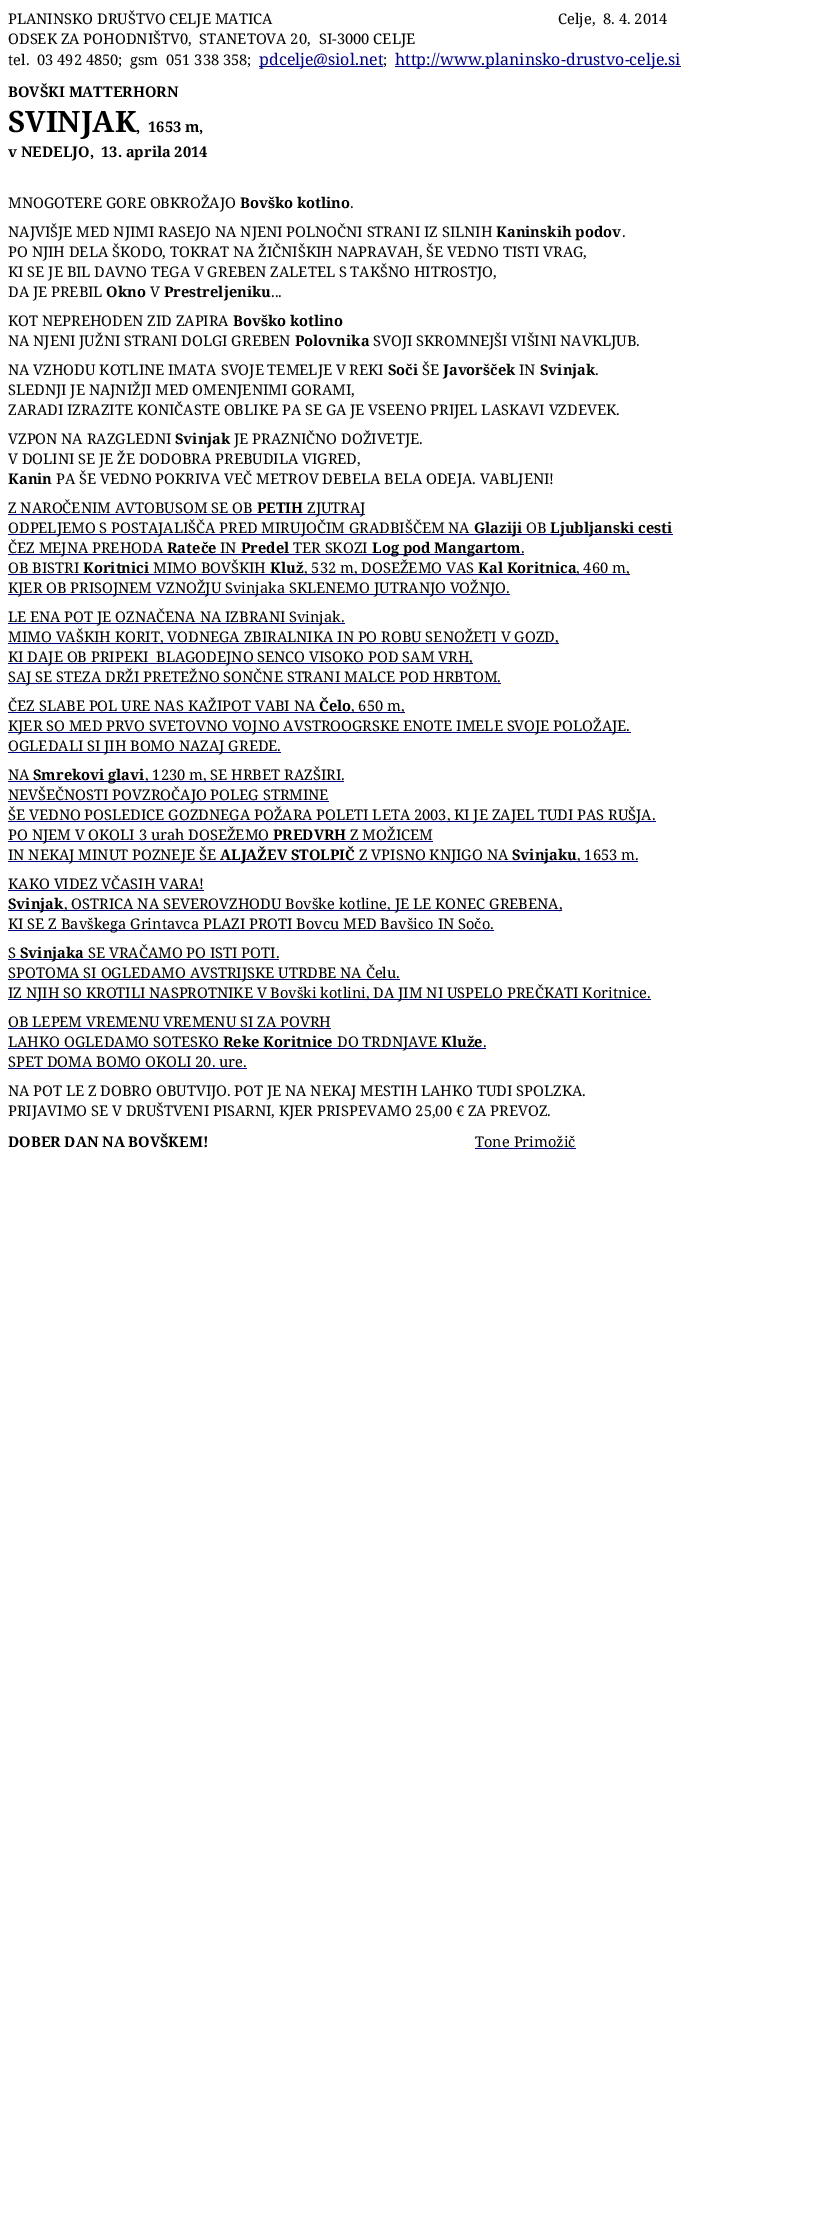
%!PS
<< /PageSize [839 2222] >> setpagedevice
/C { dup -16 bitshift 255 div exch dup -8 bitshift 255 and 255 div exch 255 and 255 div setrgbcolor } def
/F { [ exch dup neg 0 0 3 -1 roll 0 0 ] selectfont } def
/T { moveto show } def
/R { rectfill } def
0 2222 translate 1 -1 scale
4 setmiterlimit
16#FFFFFF C
0 0 839 2222 R
/NotoSerif-Regular 14.65 F
16#000000 C
(PLANINSKO DRUŠTVO CELJE MATICA) 8 24 T
(Celje,) 558 24 T
(8. 4. 2014) 603 24 T
(ODSEK ZA POHODNIŠTV0,) 8 44 T
(STANETOVA 20,) 199 44 T
(SI-3000 CELJE) 319 44 T
(tel.) 8 65 T
(03 492 4850;) 37 65 T
(gsm) 130 65 T
(051 338 358;) 166 65 T
16#000080 C
259 66 124 1 R
/NotoSerif-Regular 16 F
(pdcelje@siol.net) 259 65 T
/NotoSerif-Regular 14.65 F
16#000000 C
(;) 383 65 T
16#000080 C
395 66 286 1 R
/NotoSerif-Regular 16 F
(http://www.planinsko-drustvo-celje.si) 395 65 T
/NotoSerif-Bold 14.65 F
16#000000 C
(BOVŠKI MATTERHORN) 8 97 T
/NotoSerif-Bold 29.5 F
(SVINJAK) 8 132 T
/NotoSerif-Bold 14.65 F
(,) 136 132 T
(1653 m,) 148 132 T
(v NEDELJO,) 8 157 T
(13. aprila 2014) 101 157 T
/NotoSerif-Regular 14.65 F
(MNOGOTERE GORE OBKROŽAJO) 8 208 T
/NotoSerif-Bold 14.65 F
(Bovško kotlino) 240 208 T
/NotoSerif-Regular 14.65 F
(.) 350 208 T
(NAJVIŠJE MED NJIMI RASEJO NA NJENI POLNOČNI STRANI IZ SILNIH) 8 237 T
/NotoSerif-Bold 14.65 F
(Kaninskih podov) 496 237 T
/NotoSerif-Regular 14.65 F
(.) 622 237 T
(PO NJIH DELA ŠKODO, TOKRAT NA ŽIČNIŠKIH NAPRAVAH, ŠE VEDNO TISTI VRAG,) 8 257 T
(KI SE JE BIL DAVNO TEGA V GREBEN ZALETEL S TAKŠNO HITROSTJO,) 8 277 T
(DA JE PREBIL) 8 297 T
/NotoSerif-Bold 14.65 F
(Okno) 106 297 T
/NotoSerif-Regular 14.65 F
(V) 150 297 T
/NotoSerif-Bold 14.65 F
(Prestreljeniku) 164 297 T
/NotoSerif-Regular 14.65 F
(...) 271 297 T
(KOT NEPREHODEN ZID ZAPIRA) 8 326 T
/NotoSerif-Bold 14.65 F
(Bovško kotlino) 233 326 T
/NotoSerif-Regular 14.65 F
(NA NJENI JUŽNI STRANI DOLGI GREBEN) 8 346 T
/NotoSerif-Bold 14.65 F
(Polovnika) 295 346 T
/NotoSerif-Regular 14.65 F
(SVOJI SKROMNEJŠI VIŠINI NAVKLJUB.) 373 346 T
(NA VZHODU KOTLINE IMATA SVOJE TEMELJE V REKI) 8 375 T
/NotoSerif-Bold 14.65 F
(Soči) 388 375 T
/NotoSerif-Regular 14.65 F
(ŠE) 422 375 T
/NotoSerif-Bold 14.65 F
(Javoršček) 443 375 T
/NotoSerif-Regular 14.65 F
(IN) 519 375 T
/NotoSerif-Bold 14.65 F
(Svinjak) 540 375 T
/NotoSerif-Regular 14.65 F
(.) 595 375 T
(SLEDNJI JE NAJNIŽJI MED OMENJENIMI GORAMI,) 8 395 T
(ZARADI IZRAZITE KONIČASTE OBLIKE PA SE GA JE VSEENO PRIJEL LASKAVI VZDEVEK.) 8 415 T
(VZPON NA RAZGLEDNI) 8 444 T
/NotoSerif-Bold 14.65 F
(Svinjak) 175 444 T
/NotoSerif-Regular 14.65 F
(JE PRAZNIČNO DOŽIVETJE.) 234 444 T
(V DOLINI SE JE ŽE DODOBRA PREBUDILA VIGRED,) 8 464 T
/NotoSerif-Bold 14.65 F
(Kanin) 8 484 T
/NotoSerif-Regular 14.65 F
(PA ŠE VEDNO POKRIVA VEČ METROV DEBELA BELA ODEJA. VABLJENI!) 56 484 T
(Z NAROČENIM AVTOBUSOM SE OB) 8 513 T
/NotoSerif-Bold 14.65 F
(PETIH) 257 513 T
16#000080 C
8 514 357 1 R
/NotoSerif-Regular 14.65 F
16#000000 C
(ZJUTRAJ) 307 513 T
16#000080 C
8 534 665 1 R
16#000000 C
(ODPELJEMO S POSTAJALIŠČA PRED MIRUJOČIM GRADBIŠČEM NA) 8 533 T
/NotoSerif-Bold 14.65 F
(Glaziji) 474 533 T
/NotoSerif-Regular 14.65 F
(OB) 526 533 T
/NotoSerif-Bold 14.65 F
(Ljubljanski cesti) 550 533 T
16#000080 C
8 554 516 1 R
/NotoSerif-Regular 14.65 F
16#000000 C
(ČEZ MEJNA PREHODA) 8 553 T
/NotoSerif-Bold 14.65 F
(Rateče) 167 553 T
/NotoSerif-Regular 14.65 F
(IN) 220 553 T
/NotoSerif-Bold 14.65 F
(Predel) 241 553 T
/NotoSerif-Regular 14.65 F
(TER SKOZI) 293 553 T
/NotoSerif-Bold 14.65 F
(Log pod Mangartom) 372 553 T
/NotoSerif-Regular 14.65 F
(.) 521 553 T
(OB BISTRI) 8 573 T
/NotoSerif-Bold 14.65 F
(Koritnici) 83 573 T
/NotoSerif-Regular 14.65 F
(MIMO BOVŠKIH) 153 573 T
/NotoSerif-Bold 14.65 F
(Kluž) 270 573 T
16#000080 C
8 574 622 1 R
/NotoSerif-Regular 14.65 F
16#000000 C
(, 532 m, DOSEŽEMO VAS) 304 573 T
/NotoSerif-Bold 14.65 F
(Kal Koritnica) 478 573 T
/NotoSerif-Regular 14.65 F
(, 460 m,) 576 573 T
16#000080 C
8 594 502 1 R
16#000000 C
(KJER OB PRISOJNEM VZNOŽJU Svinjaka SKLENEMO JUTRANJO VOŽNJO.) 8 593 T
16#000080 C
8 623 337 1 R
16#000000 C
(LE ENA POT JE OZNAČENA NA IZBRANI Svinjak.) 8 622 T
16#000080 C
8 643 551 1 R
16#000000 C
(MIMO VAŠKIH KORIT, VODNEGA ZBIRALNIKA IN PO ROBU SENOŽETI V GOZD,) 8 642 T
16#000080 C
8 663 465 1 R
16#000000 C
(KI DAJE OB PRIPEKI) 8 662 T
(BLAGODEJNO SENCO VISOKO POD SAM VRH,) 156 662 T
16#000080 C
8 683 493 1 R
16#000000 C
(SAJ SE STEZA DRŽI PRETEŽNO SONČNE STRANI MALCE POD HRBTOM.) 8 682 T
(ČEZ SLABE POL URE NAS KAŽIPOT VABI NA) 8 711 T
/NotoSerif-Bold 14.65 F
(Čelo) 319 711 T
16#000080 C
8 712 397 1 R
/NotoSerif-Regular 14.65 F
16#000000 C
(, 650 m,) 351 711 T
16#000080 C
8 732 623 1 R
16#000000 C
(KJER SO MED PRVO SVETOVNO VOJNO AVSTROOGRSKE ENOTE IMELE SVOJE POLOŽAJE.) 8 731 T
16#000080 C
8 752 273 1 R
16#000000 C
(OGLEDALI SI JIH BOMO NAZAJ GREDE.) 8 751 T
(NA) 8 780 T
16#000080 C
8 781 336 1 R
/NotoSerif-Bold 14.65 F
16#000000 C
(Smrekovi glavi) 33 780 T
/NotoSerif-Regular 14.65 F
(, 1230 m, SE HRBET RAZŠIRI.) 145 780 T
16#000080 C
8 801 321 1 R
16#000000 C
(NEVŠEČNOSTI POVZROČAJO POLEG STRMINE) 8 800 T
16#000080 C
8 821 648 1 R
16#000000 C
(ŠE VEDNO POSLEDICE GOZDNEGA POŽARA POLETI LETA 2003, KI JE ZAJEL TUDI PAS RUŠJA.) 8 820 T
16#000080 C
8 841 425 1 R
16#000000 C
(PO NJEM V OKOLI 3 urah DOSEŽEMO) 8 840 T
/NotoSerif-Bold 14.65 F
(PREDVRH) 273 840 T
/NotoSerif-Regular 14.65 F
(Z MOŽICEM) 350 840 T
16#000080 C
8 861 630 1 R
16#000000 C
(IN NEKAJ MINUT POZNEJE ŠE) 8 860 T
/NotoSerif-Bold 14.65 F
(ALJAŽEV STOLPIČ) 220 860 T
/NotoSerif-Regular 14.65 F
(Z VPISNO KNJIGO NA) 359 860 T
/NotoSerif-Bold 14.65 F
(Svinjaku) 512 860 T
/NotoSerif-Regular 14.65 F
(, 1653 m.) 577 860 T
(KAKO VIDEZ VČASIH VARA!) 8 889 T
16#000080 C
8 890 196 1 R
8 910 554 1 R
/NotoSerif-Bold 14.65 F
16#000000 C
(Svinjak) 8 909 T
/NotoSerif-Regular 14.65 F
(, OSTRICA NA SEVEROVZHODU Bovške kotline, JE LE KONEC GREBENA,) 64 909 T
16#000080 C
8 930 486 1 R
16#000000 C
(KI SE Z Bavškega Grintavca PLAZI PROTI Bovcu MED Bavšico IN Sočo.) 8 929 T
(S) 8 958 T
16#000080 C
8 959 271 1 R
/NotoSerif-Bold 14.65 F
16#000000 C
(Svinjaka) 20 958 T
/NotoSerif-Regular 14.65 F
(SE VRAČAMO PO ISTI POTI.) 88 958 T
16#000080 C
8 979 392 1 R
16#000000 C
(SPOTOMA SI OGLEDAMO AVSTRIJSKE UTRDBE NA Čelu.) 8 978 T
16#000080 C
8 999 643 1 R
16#000000 C
(IZ NJIH SO KROTILI NASPROTNIKE V Bovški kotlini, DA JIM NI USPELO PREČKATI Koritnice.) 8 998 T
(OB LEPEM VREMENU VREMENU SI ZA POVRH) 8 1027 T
16#000080 C
8 1028 323 1 R
16#000000 C
(LAHKO OGLEDAMO SOTESKO) 8 1047 T
/NotoSerif-Bold 14.65 F
(Reke Koritnice) 223 1047 T
16#000080 C
8 1048 478 1 R
/NotoSerif-Regular 14.65 F
16#000000 C
(DO TRDNJAVE) 337 1047 T
/NotoSerif-Bold 14.65 F
(Kluže) 441 1047 T
/NotoSerif-Regular 14.65 F
(.) 483 1047 T
(SPET DOMA BOMO OKOLI 20. ure.) 8 1067 T
16#000080 C
8 1068 239 1 R
16#000000 C
(NA POT LE Z DOBRO OBUTVIJO. POT JE NA NEKAJ MESTIH LAHKO TUDI SPOLZKA.) 8 1096 T
(PRIJAVIMO SE V DRUŠTVENI PISARNI, KJER PRISPEVAMO 25,00 € ZA PREVOZ.) 8 1116 T
/NotoSerif-Bold 14.65 F
(DOBER DAN NA BOVŠKEM!) 8 1147 T
/NotoSerif-Regular 14.65 F
(Tone Primožič) 475 1147 T
16#000080 C
475 1148 101 1 R
showpage
